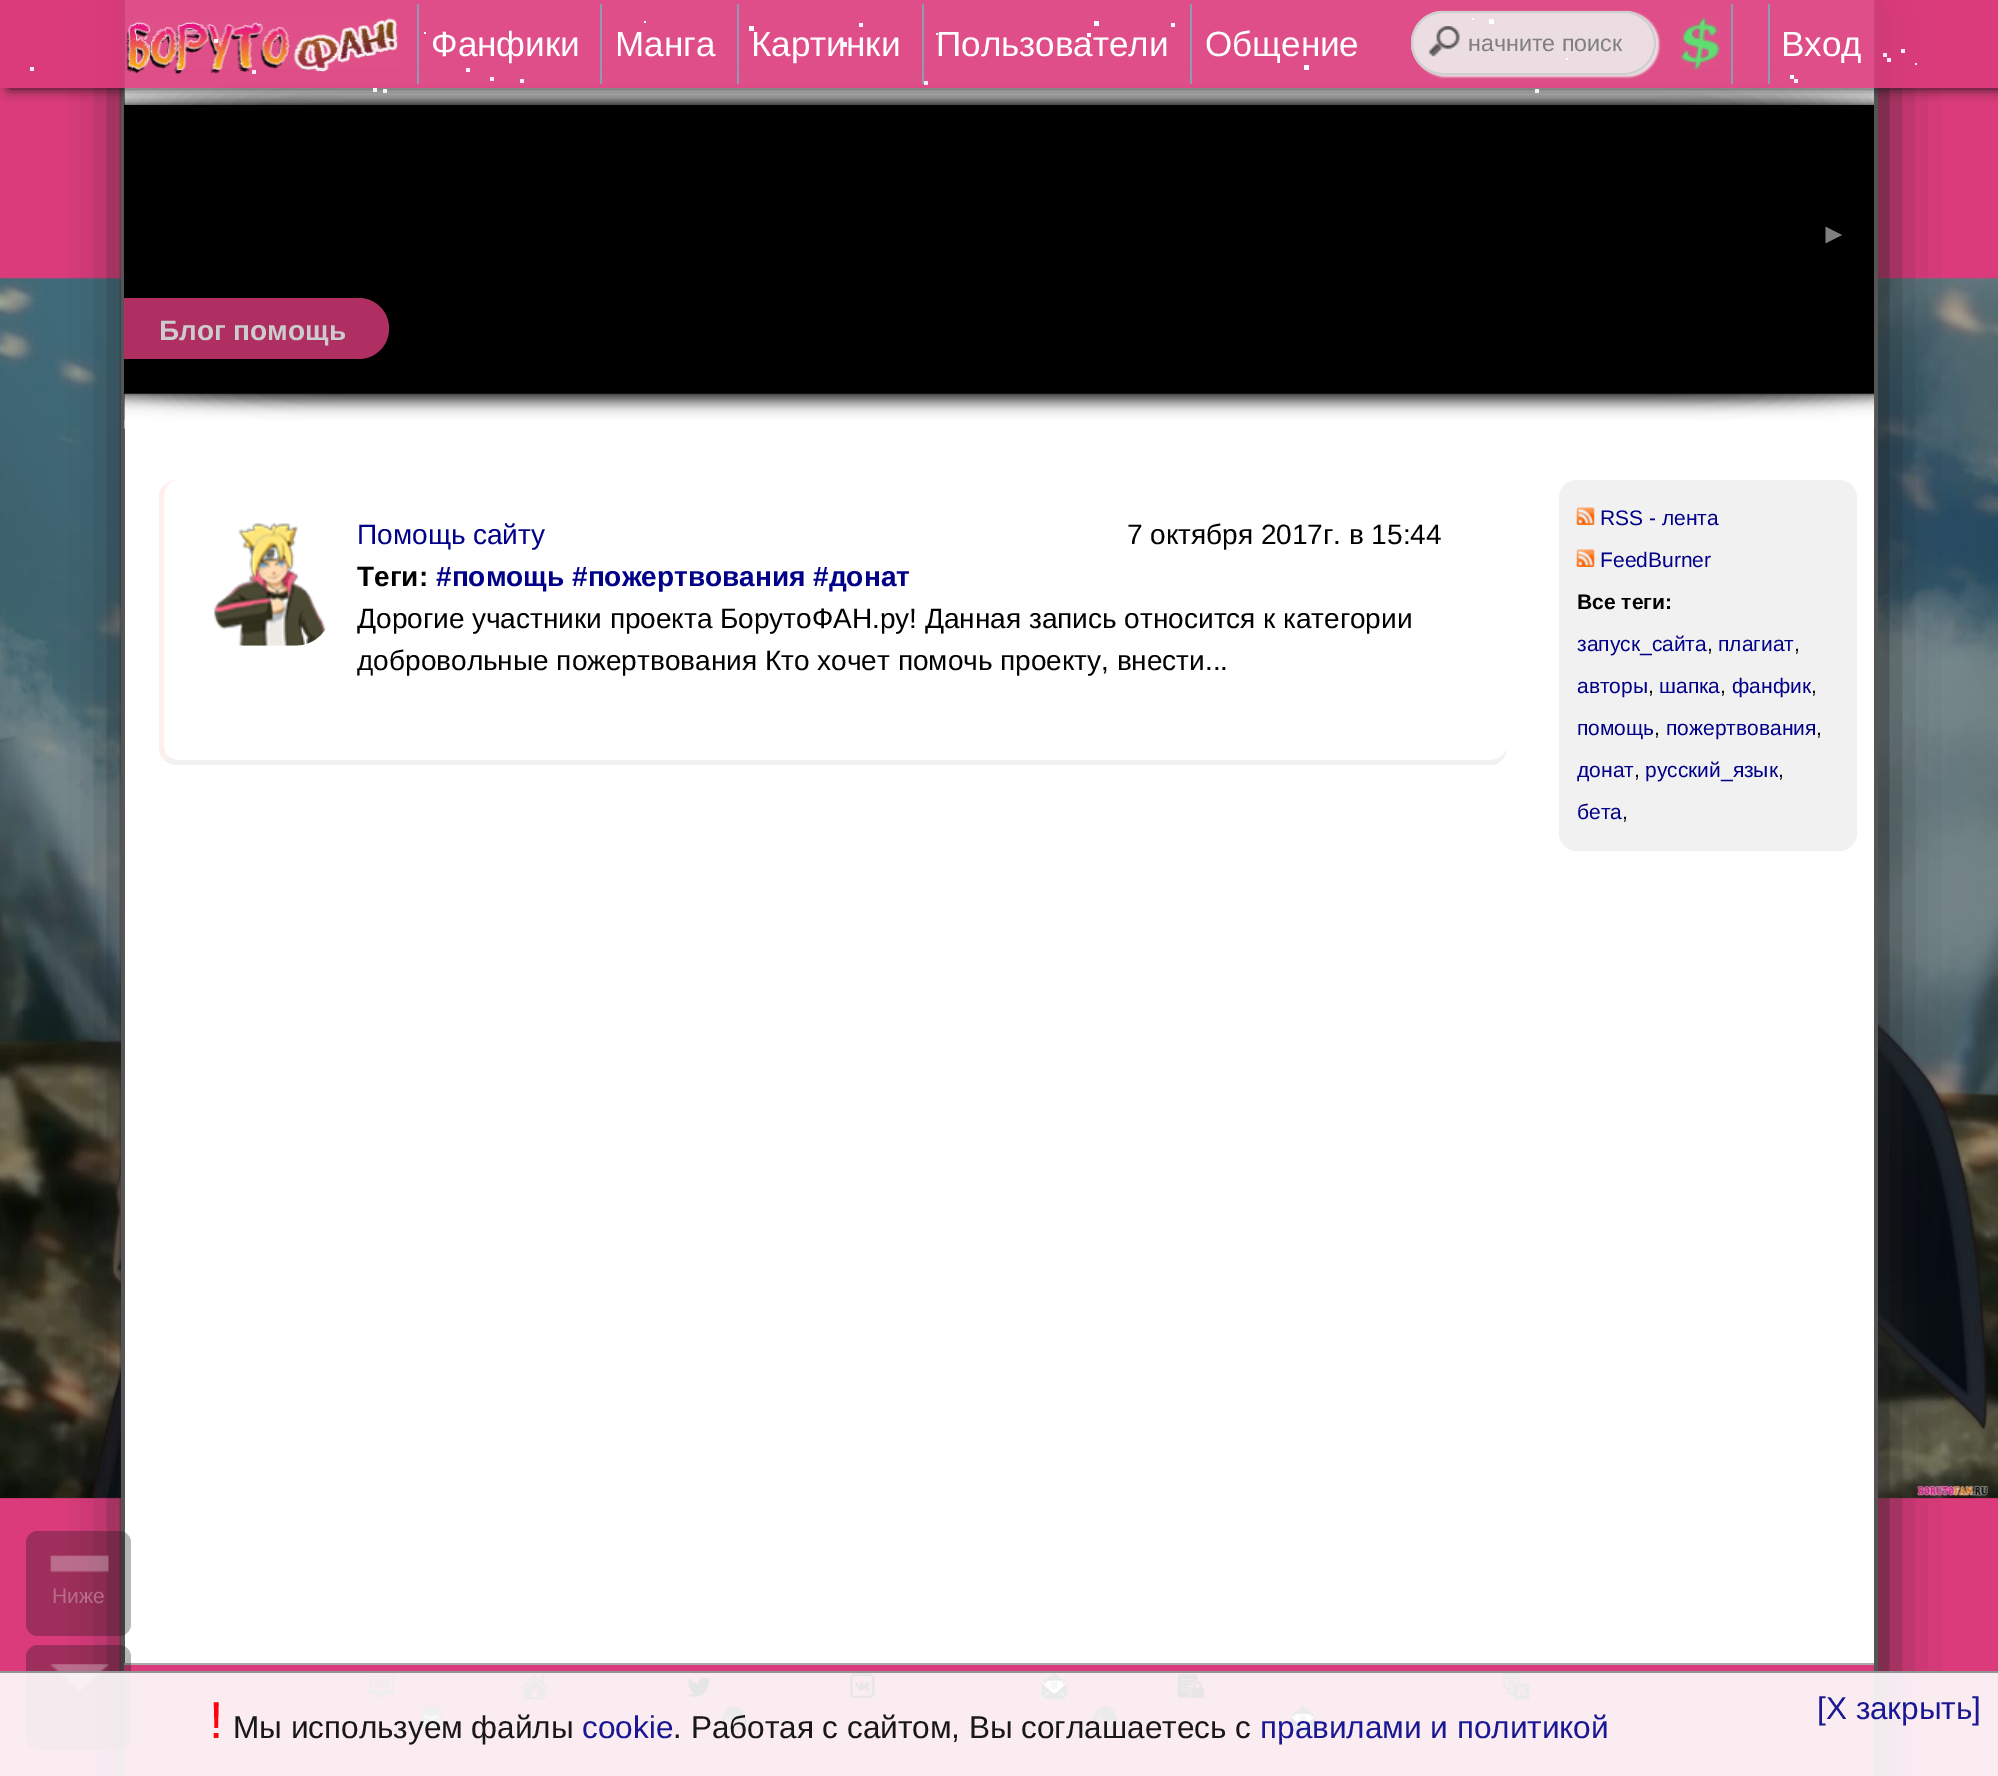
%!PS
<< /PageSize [1998 1776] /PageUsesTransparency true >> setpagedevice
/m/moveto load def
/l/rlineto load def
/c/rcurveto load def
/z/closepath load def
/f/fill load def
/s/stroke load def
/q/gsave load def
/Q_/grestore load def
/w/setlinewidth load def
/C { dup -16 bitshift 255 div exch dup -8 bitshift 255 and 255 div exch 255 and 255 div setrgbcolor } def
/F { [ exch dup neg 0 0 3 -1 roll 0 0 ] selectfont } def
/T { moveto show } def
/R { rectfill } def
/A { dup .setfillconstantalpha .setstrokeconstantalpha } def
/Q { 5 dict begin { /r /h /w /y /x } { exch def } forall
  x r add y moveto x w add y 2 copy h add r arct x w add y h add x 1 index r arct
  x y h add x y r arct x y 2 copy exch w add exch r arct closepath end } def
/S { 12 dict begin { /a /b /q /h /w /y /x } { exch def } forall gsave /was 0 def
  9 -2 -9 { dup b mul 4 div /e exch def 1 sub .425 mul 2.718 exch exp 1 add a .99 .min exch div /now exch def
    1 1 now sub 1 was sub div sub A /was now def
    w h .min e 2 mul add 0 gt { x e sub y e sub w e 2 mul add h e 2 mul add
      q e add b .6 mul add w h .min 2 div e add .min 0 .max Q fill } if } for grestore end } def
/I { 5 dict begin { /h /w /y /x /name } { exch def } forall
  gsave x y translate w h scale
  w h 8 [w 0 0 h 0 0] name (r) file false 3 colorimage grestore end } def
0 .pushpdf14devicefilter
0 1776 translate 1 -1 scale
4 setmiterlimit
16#DB3B7B C
0 0 1998 1776 R
(1.rgb) 0 277 1998 1222 I
16#222222 C
126 5 1757 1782 0 26 1 S
16#FFFFFF C
125 0 1749 1663 R
16#555555 C
1874 0 4 1776 R
121 0 4 1776 R
16#000000 C
124 70 1750 350 R
(5.rgb) 124 70 1751 35 I
q
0 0 m 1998 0 l 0 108 l -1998 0 l z 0 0 m 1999 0 l 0 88 l -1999 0 l z eoclip newpath
16#111111 C
9 2 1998 87 0 6 .9 S
Q_
0.9 A
16#DB3B7B C
0 0 1998 88 R
1 A
16#FFFFFF C
644 21 2 2 R
859 23 4 4 R
1094 21 5 5 R
1171 23 4 4 R
q
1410 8 m 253 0 l 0 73 l -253 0 l z 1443 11 m 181 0 l 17.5 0 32 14.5 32 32 c 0 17.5 -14.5 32 -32 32 c -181 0 l -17.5 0 -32 -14.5 -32 -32 c 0 -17.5 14.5 -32 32 -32 c z eoclip newpath
16#EEEEEE C
1414 12 245 65 32.5 1 .9 S
Q_
0.9 A
16#EDEDED C
1411 11 245 64 32 Q f
1 A
(3.rgb) 1428 26 32 32 I
0.9 A
16#CCCCCC C
2 w
1412 12 243 62 31 Q s
1 A
16#FFFFFF C
1472 18 2 2 R
1489 19 5 5 R
749 26 5 5 R
424 32 2 2 R
(2.rgb) 126 18 272 57 I
/LiberationSans-Regular 35 F
(Фанфики) 431 56 T
16#8F98B4 C
417 4 2 80 R
16#FFFFFF C
(Манга) 615 56 T
16#8F98B4 C
600 4 2 80 R
16#FFFFFF C
(Картинки) 751 56 T
16#8F98B4 C
737 4 2 80 R
16#FFFFFF C
(Пользователи) 936 56 T
16#8F98B4 C
922 4 2 80 R
16#FFFFFF C
(Общение) 1205 56 T
16#8F98B4 C
1190 4 2 80 R
/LiberationSans-Regular 23.25 F
16#808080 C
(начните поиск) 1468 51 T
16#8F98B4 C
1731 4 2 80 R
(4.rgb) 1680 17 40 53 I
/LiberationSans-Regular 35 F
16#FFFFFF C
(Вход) 1781 56 T
16#8F98B4 C
1768 4 2 80 R
16#FFFFFF C
936 33 2 2 R
1087 33 4 4 R
214 39 4 4 R
842 42 5 5 R
784 47 4 4 R
16#FBEBF2 C
1901 49 4 4 R
16#FBEBF1 C
1883 53 4 4 R
16#FFFFFF C
1566 58 2 2 R
16#FBEBF1 C
1887 58 4 4 R
16#FAEBF1 C
1915 63 2 2 R
16#FBEBF2 C
30 67 4 4 R
16#FCEDF3 C
252 70 4 4 R
466 68 4 4 R
16#FFFFFF C
1304 65 5 5 R
16#FCEDF3 C
490 77 4 4 R
520 79 4 4 R
924 81 4 4 R
16#FFFFFF C
1790 75 4 4 R
16#FCEDF3 C
1794 79 4 4 R
0.9 A
16#FFFFFF C
373 88 4 4 R
383 89 4 4 R
1535 89 4 4 R
/LiberationSans-Regular 28 F
1 A
16#808080 C
(►) 1820 243 T
16#AF2F62 C
124 298 m 234.5 0 l 17 0 30.5 13.5 30.5 30.5 c 0 17 -13.5 30.5 -30.5 30.5 c -234.5 0 l z f
/LiberationSans-Bold 28 F
16#CCCCCC C
(Блог помощь) 159 340 T
(6.rgb) 124 393 1751 36 I
16#F1F1F1 C
174 765 m -4 -1 -7 -3 -10 -5 c 4 -4 l 2 2 6 4 9 4 c 1312 0 l 9 0 16 -5 18 -11 c 0 7 -8 16 -15 16 c z f
16#FFEEEE C
177 480 m -7 0 -13 7 -13 17 c 0 250 l 0 3 2 7 4 9 c -4 4 l -2 -3 -4 -6 -5 -10 c 0 -256 l 2 -8 9 -14 18 -14 c z f
(7.rgb) 214 523 112 123 I
/LiberationSans-Regular 28 F
16#000088 C
(Помощь сайту) 357 544 T
16#000000 C
(7 октября 2017г. в 15:44) 1127 544 T
/LiberationSans-Bold 28 F
(Теги:) 357 586 T
16#000088 C
(#помощь #пожертвования #донат) 436 586 T
/LiberationSans-Regular 28 F
16#000000 C
(Дорогие участники проекта БорутоФАН.ру! Данная запись относится к категории) 357 628 T
(добровольные пожертвования Кто хочет помочь проекту, внести...) 357 670 T
16#F1F1F1 C
1559 480 298 371 18 Q f
(8.rgb) 1576 507 19 18 I
/LiberationSans-Regular 21 F
16#000088 C
(RSS - лента) 1600 525 T
(9.rgb) 1576 549 19 18 I
(FeedBurner) 1600 567 T
/LiberationSans-Bold 21 F
16#000000 C
(Все теги:) 1577 609 T
/LiberationSans-Regular 21 F
16#000088 C
(запуск_сайта) 1577 651 T
16#000000 C
(,) 1707 651 T
16#000088 C
(плагиат) 1718 651 T
16#000000 C
(,) 1794 651 T
16#000088 C
(авторы) 1577 693 T
16#000000 C
(,) 1648 693 T
16#000088 C
(шапка) 1659 693 T
16#000000 C
(,) 1720 693 T
16#000088 C
(фанфик) 1732 693 T
16#000000 C
(,) 1811 693 T
16#000088 C
(помощь) 1577 735 T
16#000000 C
(,) 1654 735 T
16#000088 C
(пожертвования) 1666 735 T
16#000000 C
(,) 1816 735 T
16#000088 C
(донат) 1577 777 T
16#000000 C
(,) 1634 777 T
16#000088 C
(русский_язык) 1645 777 T
16#000000 C
(,) 1778 777 T
16#000088 C
(бета) 1577 819 T
16#000000 C
(,) 1622 819 T
16#DB3B7B C
124 1665 1750 111 R
16#AAAAAA C
124 1663 1750 2 R
(10.rgb) 369 1673 27 26 I
(11.rgb) 521 1674 27 26 I
(12.rgb) 687 1677 25 21 I
(13.rgb) 849 1673 26 26 I
(14.rgb) 1041 1673 27 27 I
(15.rgb) 1177 1674 27 25 I
(16.rgb) 1503 1673 27 27 I
(17.rgb) 419 1706 25 26 I
(18.rgb) 721 1706 27 27 I
(19.rgb) 1092 1706 27 27 I
(20.rgb) 1289 1706 27 27 I
0.3 A
16#111111 C
26 1531 105 105 12 Q f
1 A
(21.rgb) 50 1555 59 18 I
16#B66C8A C
(Ниже) 52 1603 T
0.3 A
16#111111 C
26 1645 105 105 12 Q f
1 A
(22.rgb) 50 1664 59 28 I
0.9 A
16#FFFFFF C
0 1671 1998 105 R
16#888888 C
0 1671 1998 2 R
/LiberationSans-Regular 52 F
1 A
16#FB060C C
(!) 209 1738 T
/LiberationSans-Regular 31.5 F
16#191818 C
(Мы используем файлы) 233 1738 T
16#191892 C
(cookie) 582 1738 T
16#191818 C
(. Работая с сайтом, Вы соглашаетесь с) 673 1738 T
16#191892 C
(правилами и политикой) 1260 1738 T
([X закрыть]) 1817 1719 T
.poppdf14devicefilter showpage
